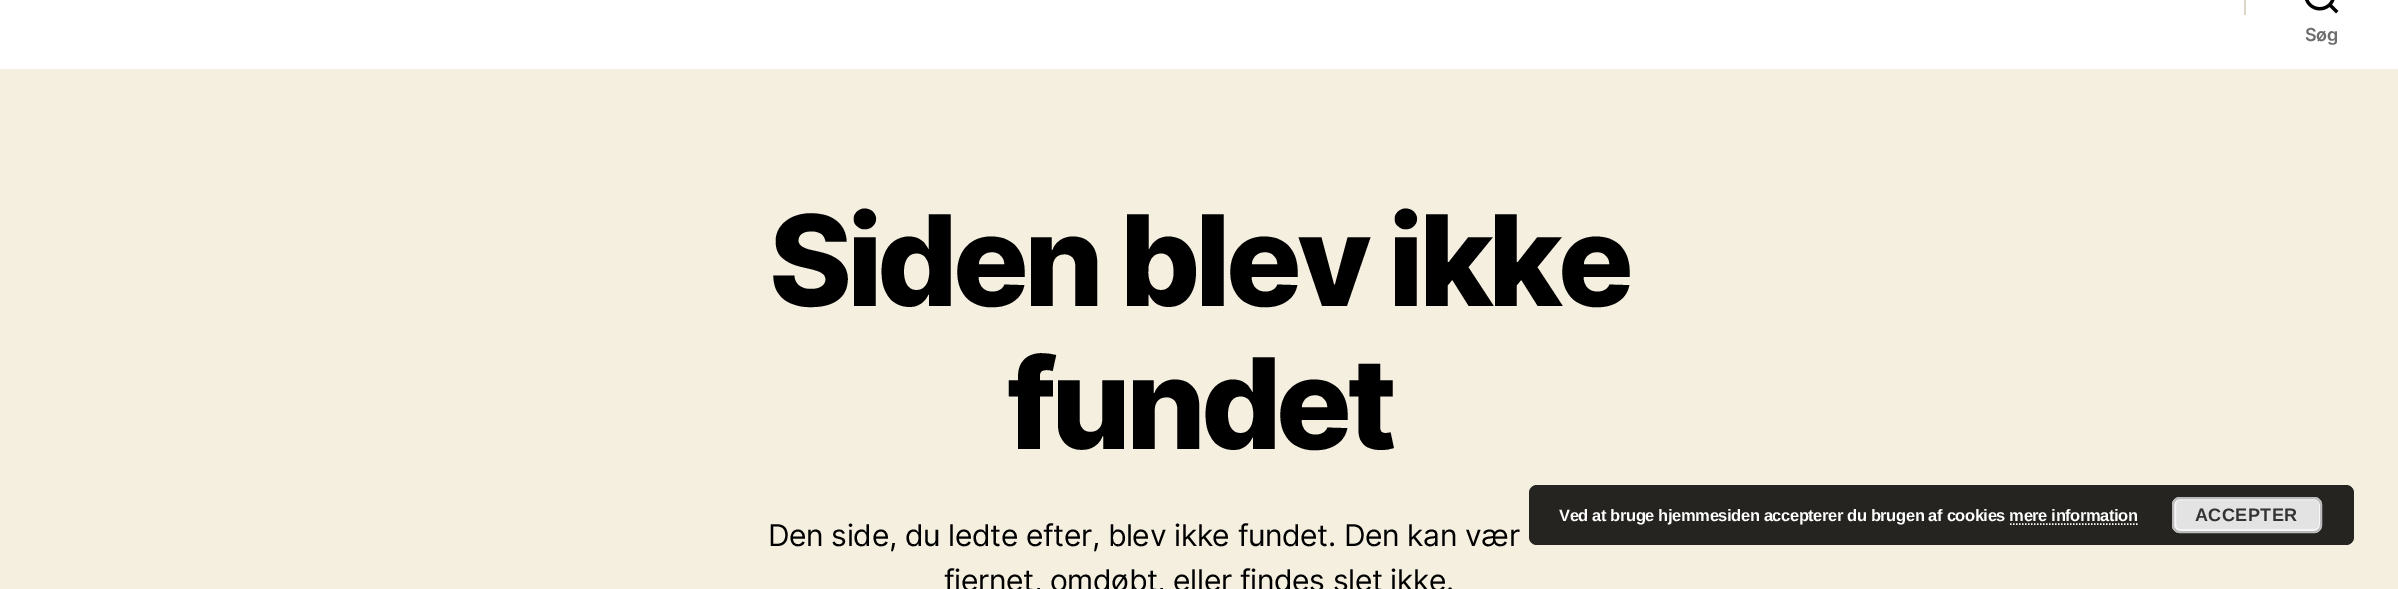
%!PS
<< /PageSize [2398 589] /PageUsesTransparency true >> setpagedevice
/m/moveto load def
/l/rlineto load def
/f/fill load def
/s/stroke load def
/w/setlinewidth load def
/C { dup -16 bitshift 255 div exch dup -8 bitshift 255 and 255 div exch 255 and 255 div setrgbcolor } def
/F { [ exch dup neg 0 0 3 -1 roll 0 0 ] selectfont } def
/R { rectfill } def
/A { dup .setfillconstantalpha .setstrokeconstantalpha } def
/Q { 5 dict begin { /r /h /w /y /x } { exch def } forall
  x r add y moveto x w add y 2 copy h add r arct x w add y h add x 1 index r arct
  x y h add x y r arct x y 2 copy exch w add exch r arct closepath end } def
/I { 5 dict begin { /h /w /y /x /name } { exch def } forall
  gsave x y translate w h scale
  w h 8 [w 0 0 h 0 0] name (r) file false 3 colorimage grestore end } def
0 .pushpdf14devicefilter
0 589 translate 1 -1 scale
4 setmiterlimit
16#F5EFE0 C
0 0 2398 589 R
16#FFFFFF C
0 0 2398 69 R
16#DCD7CA C
2244 0 2 15 R
(1.rgb) 2305 0 34 14 I
/Inter-SemiBold 18 F
16#6D6D6D C
2305 41 m -.4 0 (Søg) ashow
/Inter-ExtraBold 126 F
16#000000 C
769 306 m -5.25 0 (Siden blev ikke) ashow
1007 449 m -5.25 0 (fundet) ashow
/Inter-Regular 30 F
768 546 m -.4 0 (Den side, du ledte efter, blev ikke fundet. Den kan vær) ashow
944 591 m -.4 0 (fjernet, omdøbt, eller findes slet ikke.) ashow
0.85 A
1529 485 825 60 8 Q f
/LiberationSans-Bold 16.5 F
1 A
16#FFFFFF C
1559 521 m -.4 0 (Ved at bruge hjemmesiden accepterer du brugen af cookies mere information) ashow
16#E3E3E3 C
2172 497 150 36 8 Q f
16#F6F6F6 C
2 w
2175 499 145 31 5 Q s
16#BBBBBB C
2173 498 148 34 7 Q s
/LiberationSans-Bold 18 F
16#333333 C
2195 521 m .5 0 (ACCEPTER) ashow
16#FFFFFF C
1.5 w
[1.5 1.5] 0 setdash
2010 524 m 127.5 0 l s
.poppdf14devicefilter showpage
